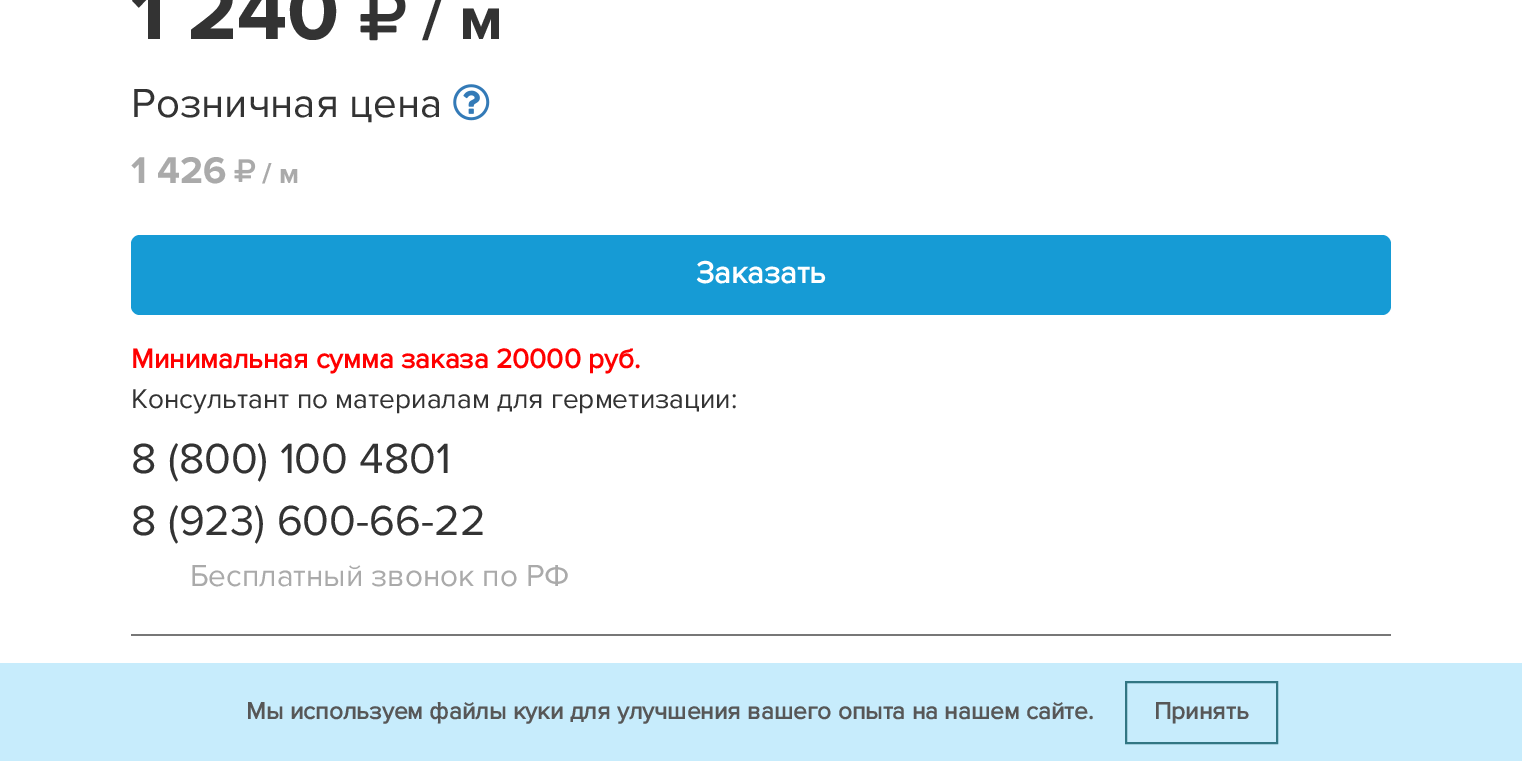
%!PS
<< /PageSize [1522 761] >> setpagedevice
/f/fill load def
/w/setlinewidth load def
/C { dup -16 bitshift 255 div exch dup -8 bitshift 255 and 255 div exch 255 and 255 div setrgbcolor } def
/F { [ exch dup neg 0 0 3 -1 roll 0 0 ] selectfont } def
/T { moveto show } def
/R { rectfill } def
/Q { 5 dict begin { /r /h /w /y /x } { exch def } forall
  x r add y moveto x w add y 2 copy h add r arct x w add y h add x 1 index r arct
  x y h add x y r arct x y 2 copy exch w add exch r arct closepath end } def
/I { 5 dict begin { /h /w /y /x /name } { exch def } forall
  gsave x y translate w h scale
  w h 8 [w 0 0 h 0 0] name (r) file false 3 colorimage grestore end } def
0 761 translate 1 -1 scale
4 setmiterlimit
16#FFFFFF C
0 0 1522 761 R
/ProximaNova-Bold 84 F
16#333333 C
(1 240) 131 39 T
(1.rgb) 360 0 46 41 I
/ProximaNova-Bold 63 F
(/ м) 422 39 T
/ProximaNova-Regular 42 F
(Розничная цена) 131 117 T
(2.rgb) 453 84 37 37 I
/ProximaNova-Bold 38.5 F
16#AAAAAA C
(1 426) 131 183 T
(3.rgb) 234 159 22 23 I
/ProximaNova-Bold 29 F
(/ м) 262 183 T
16#169BD5 C
131 235 1260 80 9 Q f
/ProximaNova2-Bold 31.5 F
16#FFFFFF C
(Заказать) 696 283 T
/ProximaNova2-Bold 28 F
16#FF0000 C
(Минимальная сумма заказа 20000 руб.) 131 368 T
/ProximaNova-Regular 28 F
16#333333 C
(Консультант по материалам для герметизации:) 131 408 T
/ProximaNova-Regular 43.75 F
(8 \(800\) 100 4801) 131 473 T
(8 \(923\) 600-66-22) 131 535 T
/ProximaNova-Regular 31.5 F
16#AAAAAA C
(Бесплатный звонок по РФ) 190 586 T
16#777777 C
131 634 1260 2 R
16#C7ECFC C
0 663 1522 98 R
/ProximaNova2-Bold 24.5 F
16#575757 C
(Мы используем файлы куки для улучшения вашего опыта на нашем сайте.) 246 719 T
16#327683 C
2 w
1126 682 151 61 rectstroke
16#575757 C
(Принять) 1154 719 T
showpage
